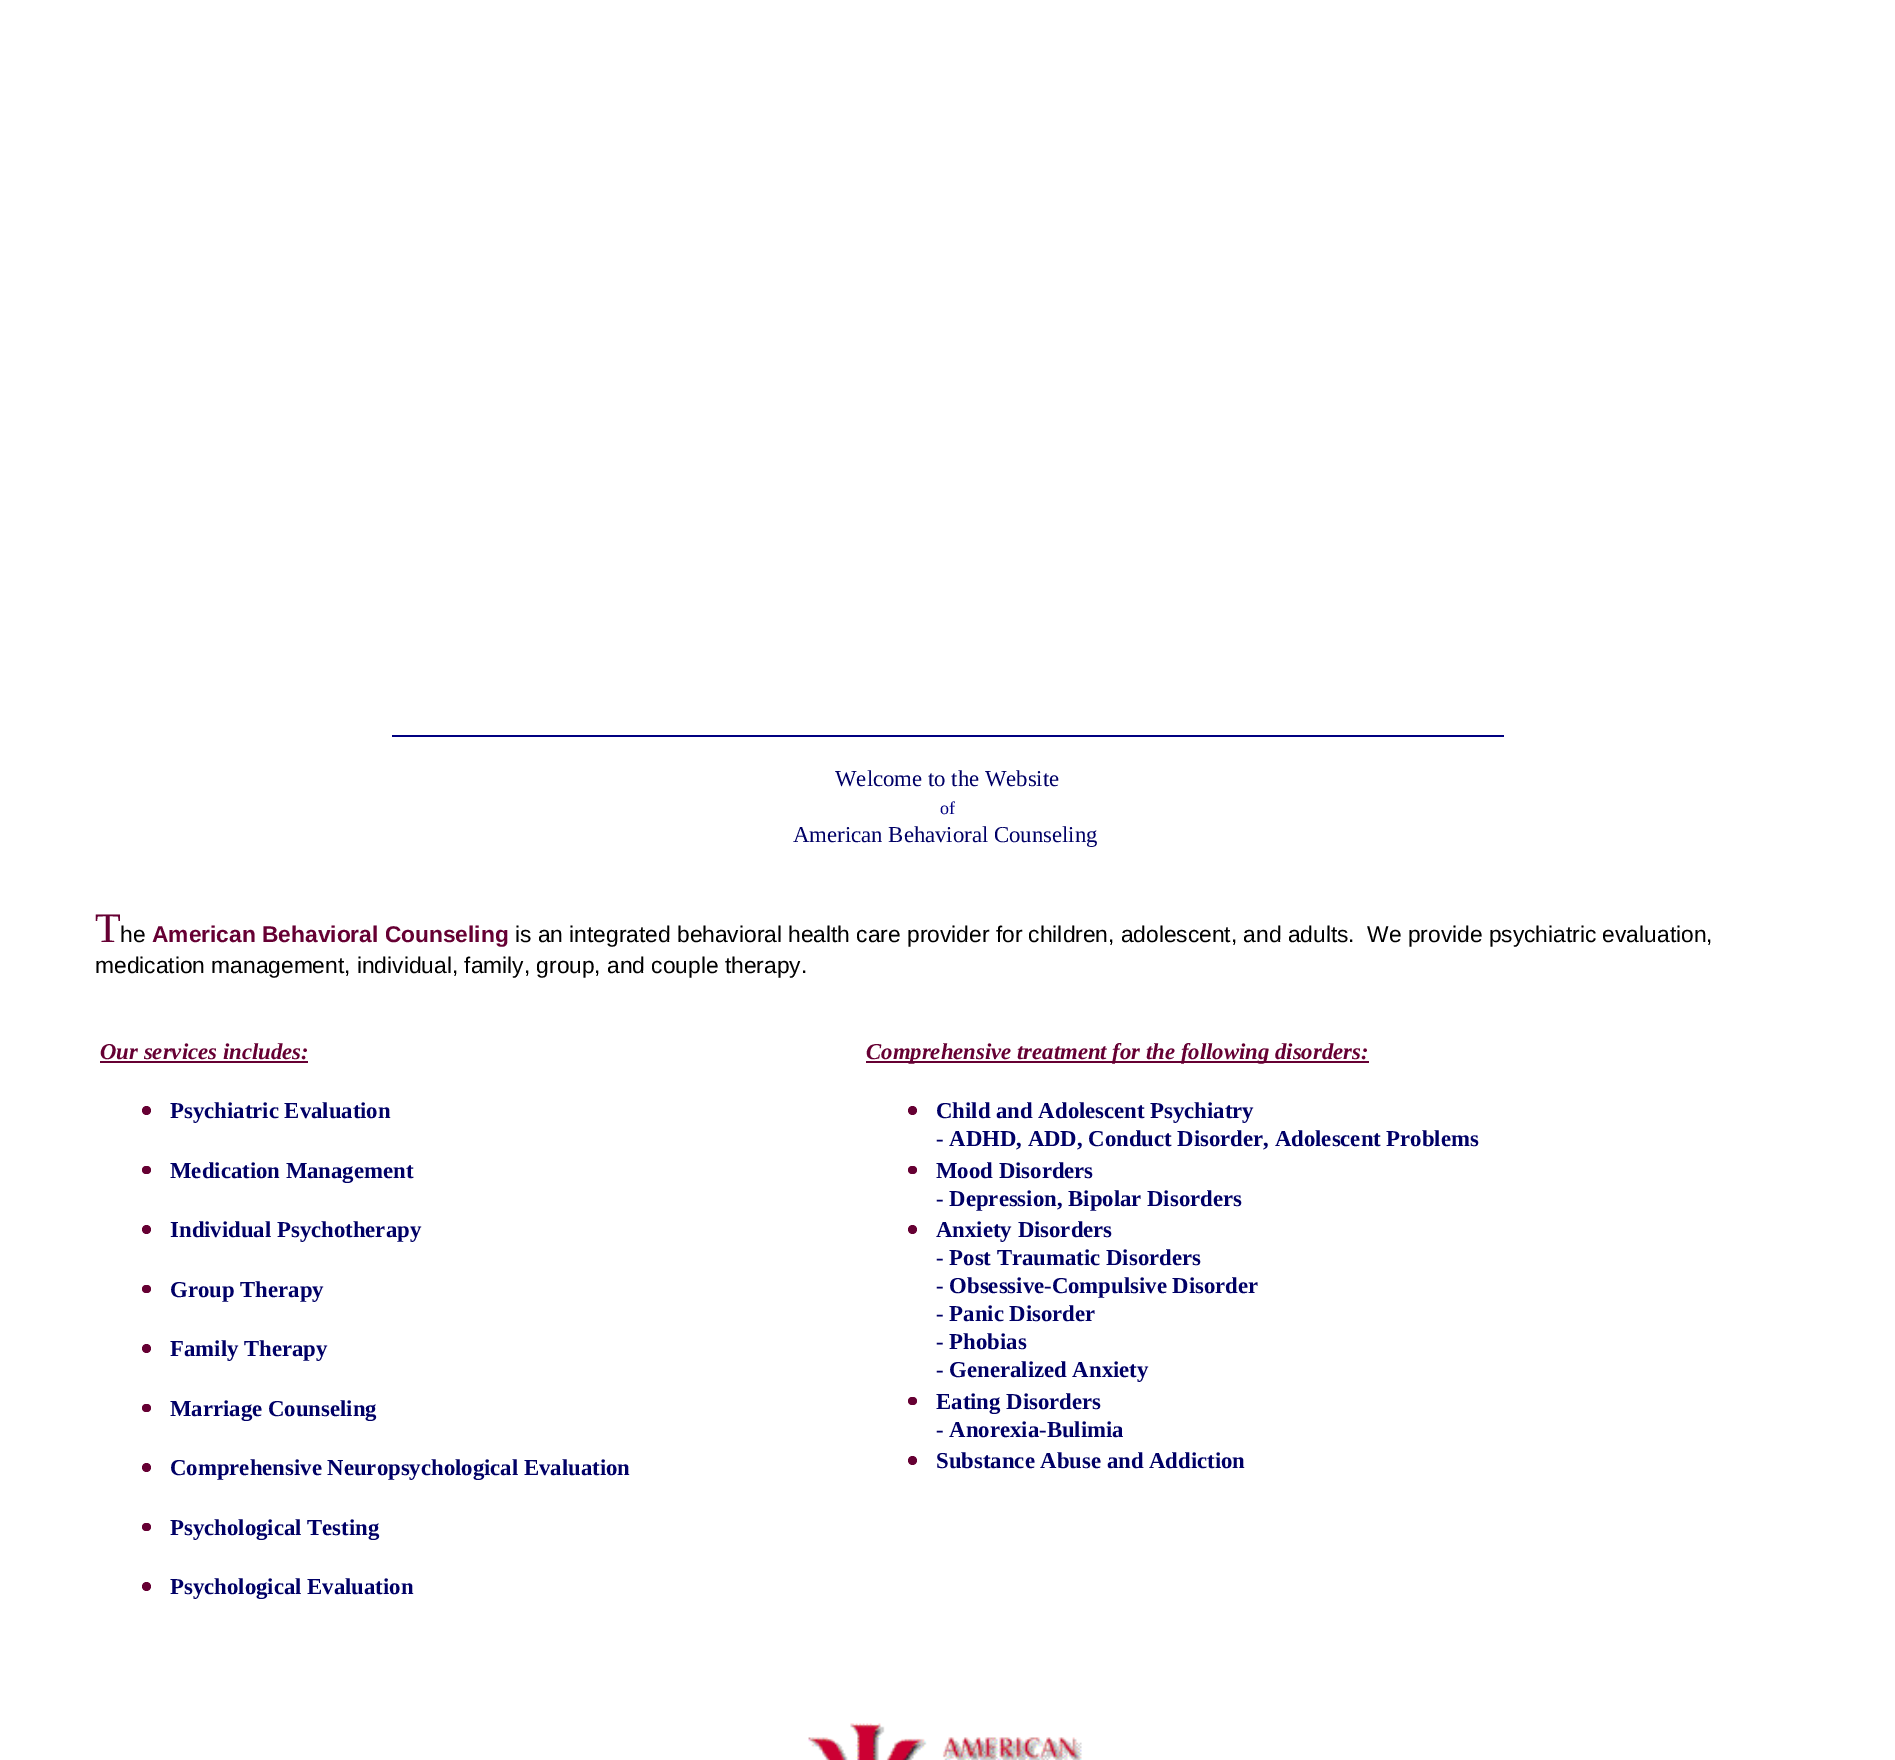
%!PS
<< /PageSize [1895 1760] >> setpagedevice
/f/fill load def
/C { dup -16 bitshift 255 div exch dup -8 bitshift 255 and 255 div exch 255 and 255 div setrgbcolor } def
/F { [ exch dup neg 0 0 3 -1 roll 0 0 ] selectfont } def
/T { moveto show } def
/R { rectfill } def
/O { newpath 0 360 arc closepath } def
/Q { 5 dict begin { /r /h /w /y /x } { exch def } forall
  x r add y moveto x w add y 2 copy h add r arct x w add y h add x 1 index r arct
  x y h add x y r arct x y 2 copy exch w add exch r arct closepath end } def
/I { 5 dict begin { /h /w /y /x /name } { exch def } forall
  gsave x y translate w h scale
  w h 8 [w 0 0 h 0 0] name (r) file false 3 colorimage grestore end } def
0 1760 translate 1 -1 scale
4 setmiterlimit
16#FFFFFF C
0 0 1895 1760 R
16#000080 C
392 735 1112 2 R
/LiberationSerif-Regular 22.75 F
16#000066 C
(Welcome to the Website) 835 786 T
/LiberationSerif-Regular 18 F
16#000080 C
(of) 940 814 T
/LiberationSerif-Regular 22.75 F
16#000066 C
(American Behavioral Counseling) 793 842 T
/LiberationSerif-Regular 42 F
16#660033 C
(T) 95 942 T
/LiberationSans-Regular 22.75 F
16#000000 C
(he) 120 942 T
/LiberationSans-Bold 22.75 F
16#660033 C
(American Behavioral Counseling) 152 942 T
/LiberationSans-Regular 22.75 F
16#000000 C
(is an integrated behavioral health care provider for children, adolescent, and adults.  We provide psychiatric evaluation,) 515 942 T
(medication management, individual, family, group, and couple therapy.) 95 973 T
/LiberationSerif-BoldItalic 22.75 F
16#660033 C
(Our services includes:) 100 1059 T
100 1061 208 2 R
146.5 1110.5 4.5 O f
/LiberationSerif-Bold 22.75 F
16#000066 C
(Psychiatric Evaluation) 170 1118 T
16#660033 C
142 1166 9 8 4 Q f
16#000066 C
(Medication Management) 170 1178 T
16#660033 C
146.5 1229.5 4.5 O f
16#000066 C
(Individual Psychotherapy) 170 1237 T
16#660033 C
142 1285 9 8 4 Q f
16#000066 C
(Group Therapy) 170 1297 T
16#660033 C
146.5 1348.5 4.5 O f
16#000066 C
(Family Therapy) 170 1356 T
16#660033 C
142 1404 9 8 4 Q f
16#000066 C
(Marriage Counseling) 170 1416 T
16#660033 C
146.5 1467.5 4.5 O f
16#000066 C
(Comprehensive Neuropsychological Evaluation) 170 1475 T
16#660033 C
142 1523 9 8 4 Q f
16#000066 C
(Psychological Testing) 170 1535 T
16#660033 C
146.5 1586.5 4.5 O f
16#000066 C
(Psychological Evaluation) 170 1594 T
16#660033 C
866 1061 503 2 R
/LiberationSerif-BoldItalic 22.75 F
(Comprehensive treatment for the following disorders:) 866 1059 T
912.5 1110.5 4.5 O f
/LiberationSerif-Bold 22.75 F
16#000066 C
(Child and Adolescent Psychiatry) 936 1118 T
(- ADHD, ADD, Conduct Disorder, Adolescent Problems) 936 1146 T
16#660033 C
908 1166 9 8 4 Q f
16#000066 C
(Mood Disorders) 936 1178 T
(- Depression, Bipolar Disorders) 936 1206 T
16#660033 C
912.5 1229.5 4.5 O f
16#000066 C
(Anxiety Disorders) 936 1237 T
(- Post Traumatic Disorders) 936 1265 T
(- Obsessive-Compulsive Disorder) 936 1293 T
(- Panic Disorder) 936 1321 T
(- Phobias) 936 1349 T
(- Generalized Anxiety) 936 1377 T
16#660033 C
908 1397 9 8 4 Q f
16#000066 C
(Eating Disorders) 936 1409 T
(- Anorexia-Bulimia) 936 1437 T
16#660033 C
912.5 1460.5 4.5 O f
16#000066 C
(Substance Abuse and Addiction) 936 1468 T
(1.rgb) 808 1723 274 37 I
showpage
